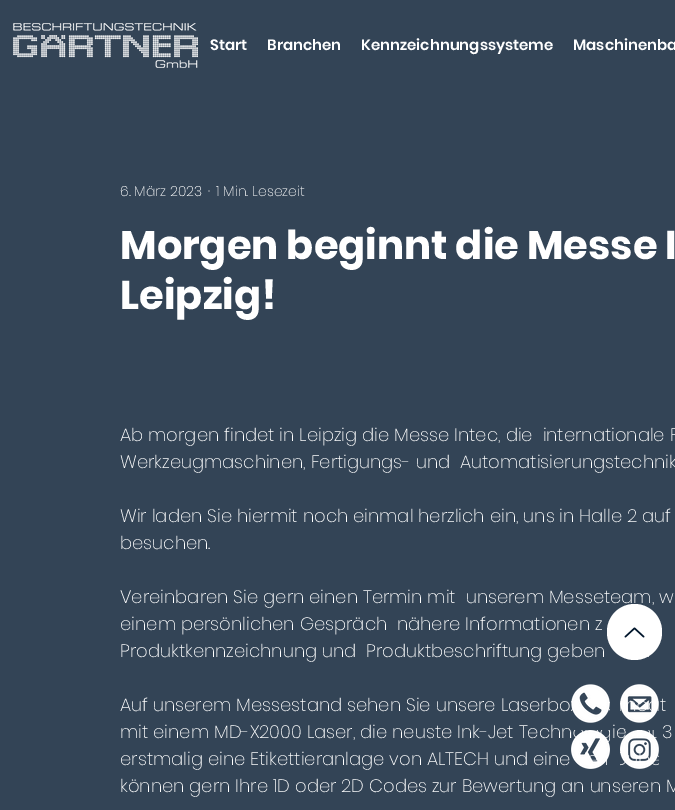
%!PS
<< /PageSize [675 810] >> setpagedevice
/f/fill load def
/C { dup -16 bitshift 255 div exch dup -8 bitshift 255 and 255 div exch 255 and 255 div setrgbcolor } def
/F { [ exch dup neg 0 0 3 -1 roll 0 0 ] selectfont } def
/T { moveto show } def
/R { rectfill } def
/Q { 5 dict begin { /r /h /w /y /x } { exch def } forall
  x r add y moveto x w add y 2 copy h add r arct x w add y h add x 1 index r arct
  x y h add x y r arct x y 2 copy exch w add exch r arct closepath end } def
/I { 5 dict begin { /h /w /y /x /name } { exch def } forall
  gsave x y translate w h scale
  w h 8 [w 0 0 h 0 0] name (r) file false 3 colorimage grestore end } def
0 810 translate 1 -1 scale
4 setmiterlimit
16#334456 C
0 0 675 810 R
(1.rgb) 13 23 185 45 I
/Poppins-SemiBold 15 F
16#FFFFFF C
(Start) 210 50 T
(Branchen) 267 50 T
(Kennzeichnungssysteme) 361 50 T
(Maschinenba) 573 50 T
/Poppins-ExtraLight 14 F
(6. März 2023) 120 196 T
(·) 208 196 T
(1 Min. Lesezeit) 216 196 T
/Poppins-Bold 40 F
(Morgen beginnt die Messe I) 120 259 T
(Leipzig!) 120 309 T
/Poppins-ExtraLight 18 F
(Ab morgen findet in Leipzig die Messe Intec, die  internationale F) 120 441 T
(Werkzeugmaschinen, Fertigungs- und  Automatisierungstechnik) 120 468 T
(Wir laden Sie hiermit noch einmal herzlich ein, uns in Halle 2 auf) 120 522 T
(besuchen.) 120 549 T
(Vereinbaren Sie gern einen Termin mit  unserem Messeteam, w) 120 603 T
(einem persönlichen Gespräch  nähere Informationen z) 120 630 T
(Produktkennzeichnung und  Produktbeschriftung geben) 120 657 T
(.) 647 657 T
(Auf unserem Messestand sehen Sie unsere Laserbo) 120 711 T
(t) 660 711 T
(mit einem MD-X2000 Laser, die neuste Ink-Jet Techn) 120 738 T
(ie) 612 738 T
(3) 662 738 T
(erstmalig eine Etikettieranlage von ALTECH und eine) 120 765 T
(können gern Ihre 1D oder 2D Codes zur Bewertung an unseren M) 120 792 T
607 604 55 56 27.5 Q f
(2.rgb) 624 627 21 11 I
(3.rgb) 571 684 39 39 I
(4.rgb) 620 684 39 39 I
(5.rgb) 571 730 39 39 I
(6.rgb) 620 730 39 39 I
showpage
